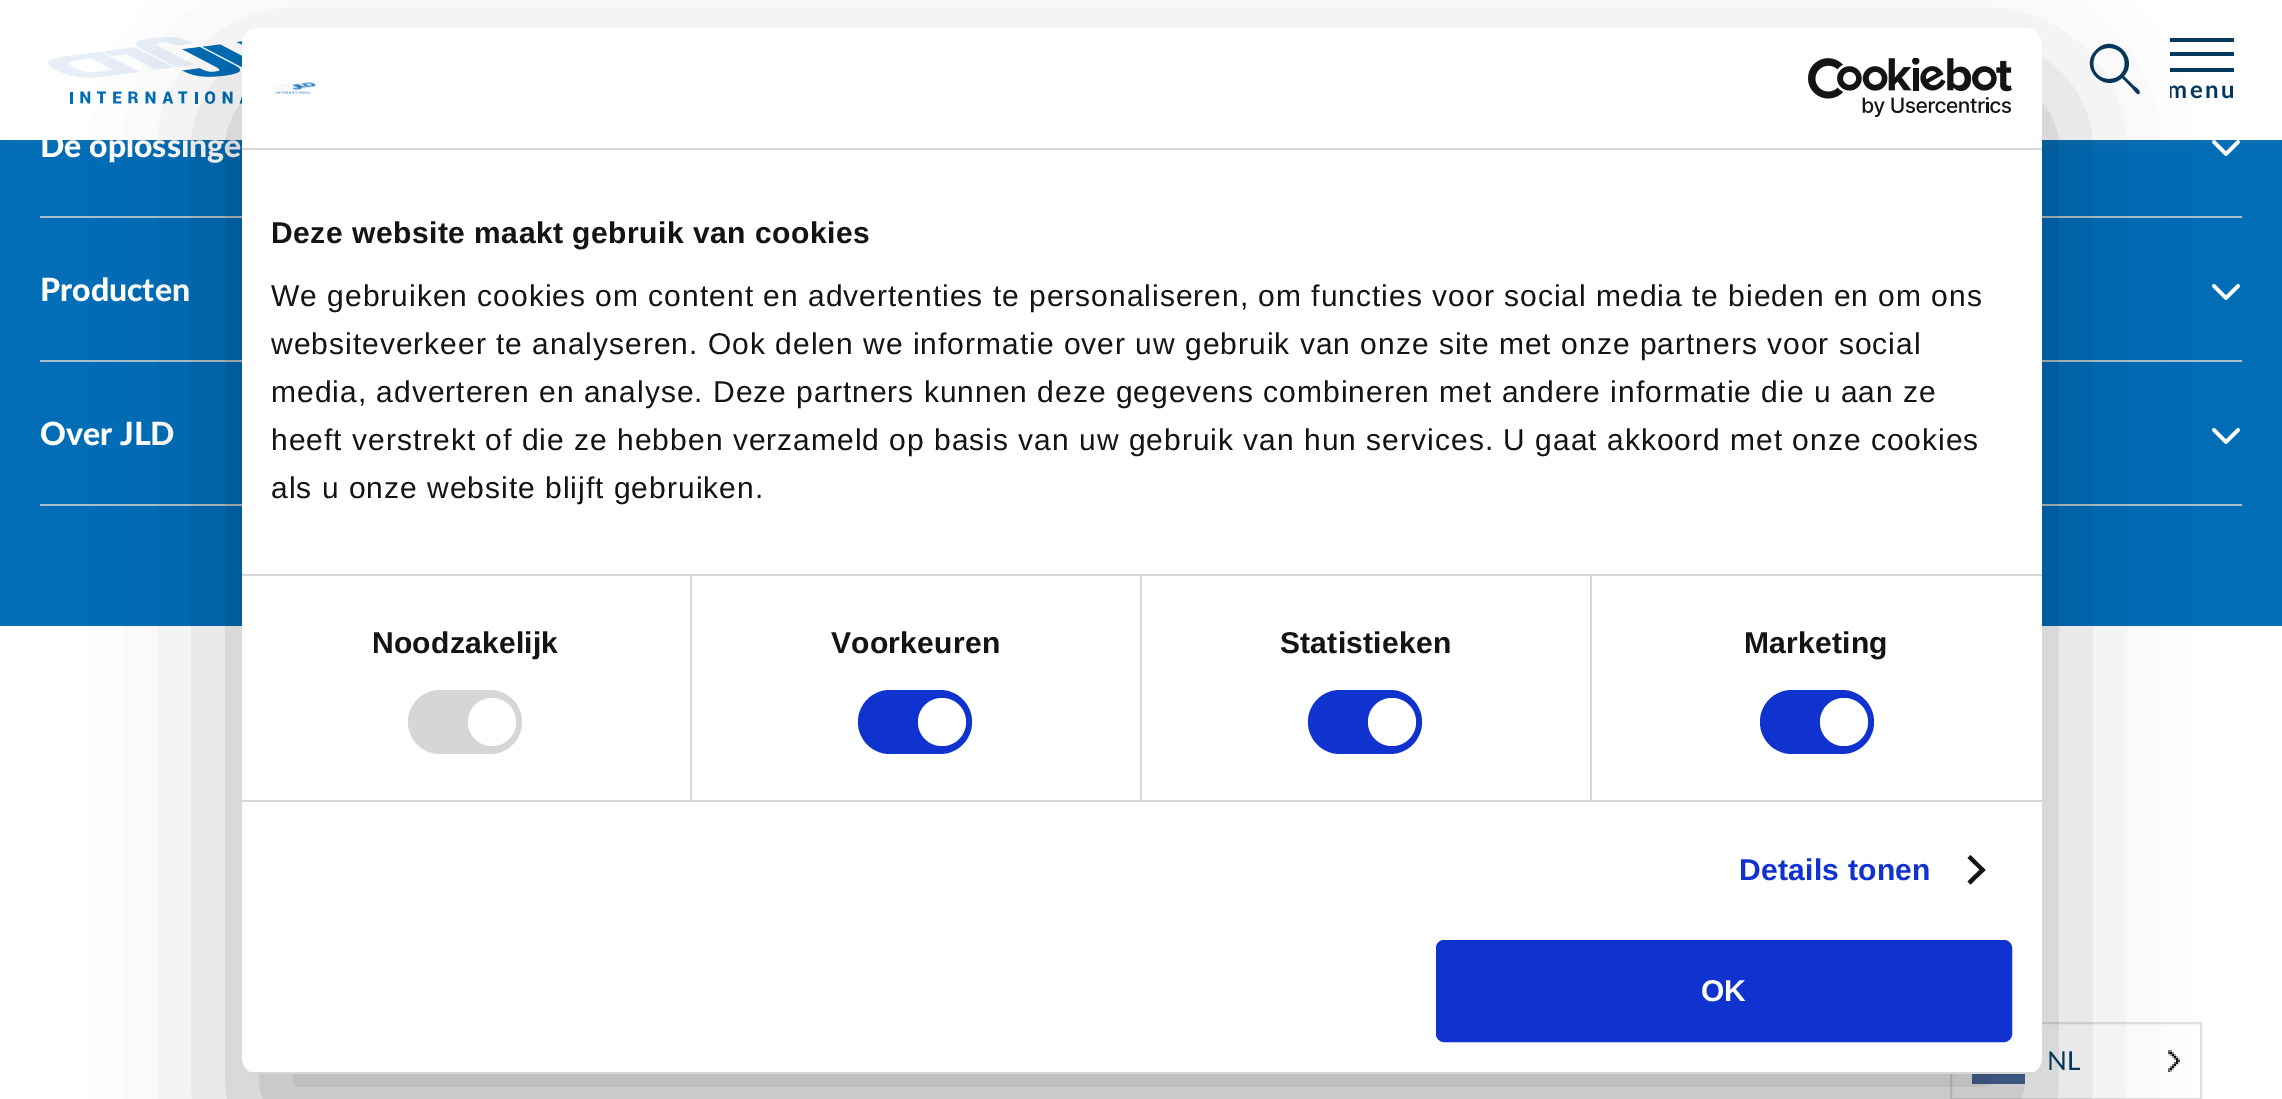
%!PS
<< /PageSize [2282 1099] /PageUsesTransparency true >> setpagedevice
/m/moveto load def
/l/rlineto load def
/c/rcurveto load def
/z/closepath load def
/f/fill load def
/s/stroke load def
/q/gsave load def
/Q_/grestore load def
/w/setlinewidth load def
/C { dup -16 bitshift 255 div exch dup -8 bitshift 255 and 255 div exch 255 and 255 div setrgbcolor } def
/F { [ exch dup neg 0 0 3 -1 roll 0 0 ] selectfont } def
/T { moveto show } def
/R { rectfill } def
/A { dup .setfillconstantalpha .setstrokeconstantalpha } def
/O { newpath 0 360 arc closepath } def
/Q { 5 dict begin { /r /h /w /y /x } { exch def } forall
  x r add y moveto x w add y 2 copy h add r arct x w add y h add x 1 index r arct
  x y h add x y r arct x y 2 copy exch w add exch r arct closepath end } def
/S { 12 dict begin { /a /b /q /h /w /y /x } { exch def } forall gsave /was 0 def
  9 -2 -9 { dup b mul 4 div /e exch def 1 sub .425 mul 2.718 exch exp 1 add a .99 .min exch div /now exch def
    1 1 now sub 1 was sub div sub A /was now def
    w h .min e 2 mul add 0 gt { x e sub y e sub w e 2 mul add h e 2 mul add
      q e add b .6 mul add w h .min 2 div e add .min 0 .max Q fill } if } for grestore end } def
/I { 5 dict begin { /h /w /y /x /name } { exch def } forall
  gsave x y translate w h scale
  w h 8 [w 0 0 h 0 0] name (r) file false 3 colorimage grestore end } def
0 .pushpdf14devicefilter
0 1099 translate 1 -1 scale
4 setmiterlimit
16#FFFFFF C
0 0 2282 1099 R
16#006DB6 C
0 140 2282 486 R
(2.rgb) 2212 140 28 16 I
16#898989 C
0 4 2282 140 0 4 .1 S
16#FFFFFF C
0 1 2282 139 R
(1.rgb) 48 36 195 68 I
16#04385C C
2124 76 m 16 -18 -11 -44 -28 -26 c -18 17 8 44 26 28 c 10 10 l 1 1 5 7 7 6 c 3 -3 -4 -7 -5 -8 c z 2109 79 m -21 0 -21 -31 0 -31 c 21 0 21 31 0 31 c z f
2170 38 64 4 R
2170 52 64 4 R
2170 68 64 4 R
q
2170 38 64 64 rectclip
/Lato-Bold 24 F
2167 98 m 2.5 0 (menu) ashow
Q_
16#ACBECB C
40 216 2202 2 R
/Lato-Black 32 F
16#FFFFFF C
(De oplossinge) 40 157 T
16#ACBECB C
40 360 2202 2 R
16#FFFFFF C
(Producten) 40 301 T
(2.rgb) 2212 284 28 16 I
16#ACBECB C
40 504 2202 2 R
16#FFFFFF C
(Over JLD) 40 445 T
(2.rgb) 2212 428 28 16 I
16#E0E0E0 C
2 w
1951 1023 250 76 rectstroke
16#4D6BA2 C
1972 1074 53 10 R
(5.rgb) 2168 1050 12 22 I
16#000000 C
242 92 1800 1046 16 68 .3 S
16#FFFFFF C
242 28 1800 1046 16 Q f
16#D6D6D6 C
242 148 1800 2 R
(3.rgb) 272 82 44 13 I
(4.rgb) 1808 58 204 60 I
242 574 1800 2 R
/LiberationSans-Bold 30 F
16#141414 C
271 243 m .5 0 (Deze website maakt gebruik van cookies) ashow
/LiberationSans-Regular 30 F
271 306 m 1 0 (We gebruiken cookies om content en advertenties te personaliseren, om functies voor social media te bieden en om ons) ashow
271 354 m 1 0 (websiteverkeer te analyseren. Ook delen we informatie over uw gebruik van onze site met onze partners voor social) ashow
271 402 m 1 0 (media, adverteren en analyse. Deze partners kunnen deze gegevens combineren met andere informatie die u aan ze) ashow
271 450 m 1 0 (heeft verstrekt of die ze hebben verzameld op basis van uw gebruik van hun services. U gaat akkoord met onze cookies) ashow
271 498 m 1 0 (als u onze website blijft gebruiken.) ashow
16#D6D6D6 C
242 800 1800 2 R
690 576 2 224 R
/LiberationSans-Bold 30 F
16#141414 C
372 653 m .25 0 (Noodzakelijk) ashow
16#D6D6D6 C
408 690 114 64 32 Q f
16#FFFFFF C
492 722 24 O f
16#D6D6D6 C
1140 576 2 224 R
16#141414 C
831 653 m .25 0 (Voorkeuren) ashow
16#1032CF C
858 690 114 64 32 Q f
16#FFFFFF C
942 722 24 O f
16#D6D6D6 C
1590 576 2 224 R
16#141414 C
1280 653 m .25 0 (Statistieken) ashow
16#1032CF C
1308 690 114 64 32 Q f
16#FFFFFF C
1392 722 24 O f
16#141414 C
1744 653 m .25 0 (Marketing) ashow
16#1032CF C
1760 690 114 64 32 Q f
16#FFFFFF C
1844 722 24 O f
16#1032CF C
1739 880 m .25 0 (Details tonen) ashow
16#141414 C
1970.5 855 m 15 15 l -3 2.5 l -15 -14.5 l z f
1982.5 867 m 3 3 l -15 14.5 l -3 -3 l z f
q
242 28 1800 1046 16 Q clip newpath
16#D6D6D6 C
242 1072 1800 2 R
Q_
16#1032CF C
1438 942 572 98 6 Q q f Q_
4 w
s
16#FFFFFF C
(OK) 1701 1001 T
/Lato-Regular 26 F
16#04385C C
(NL) 2047 1070 T
.poppdf14devicefilter showpage
